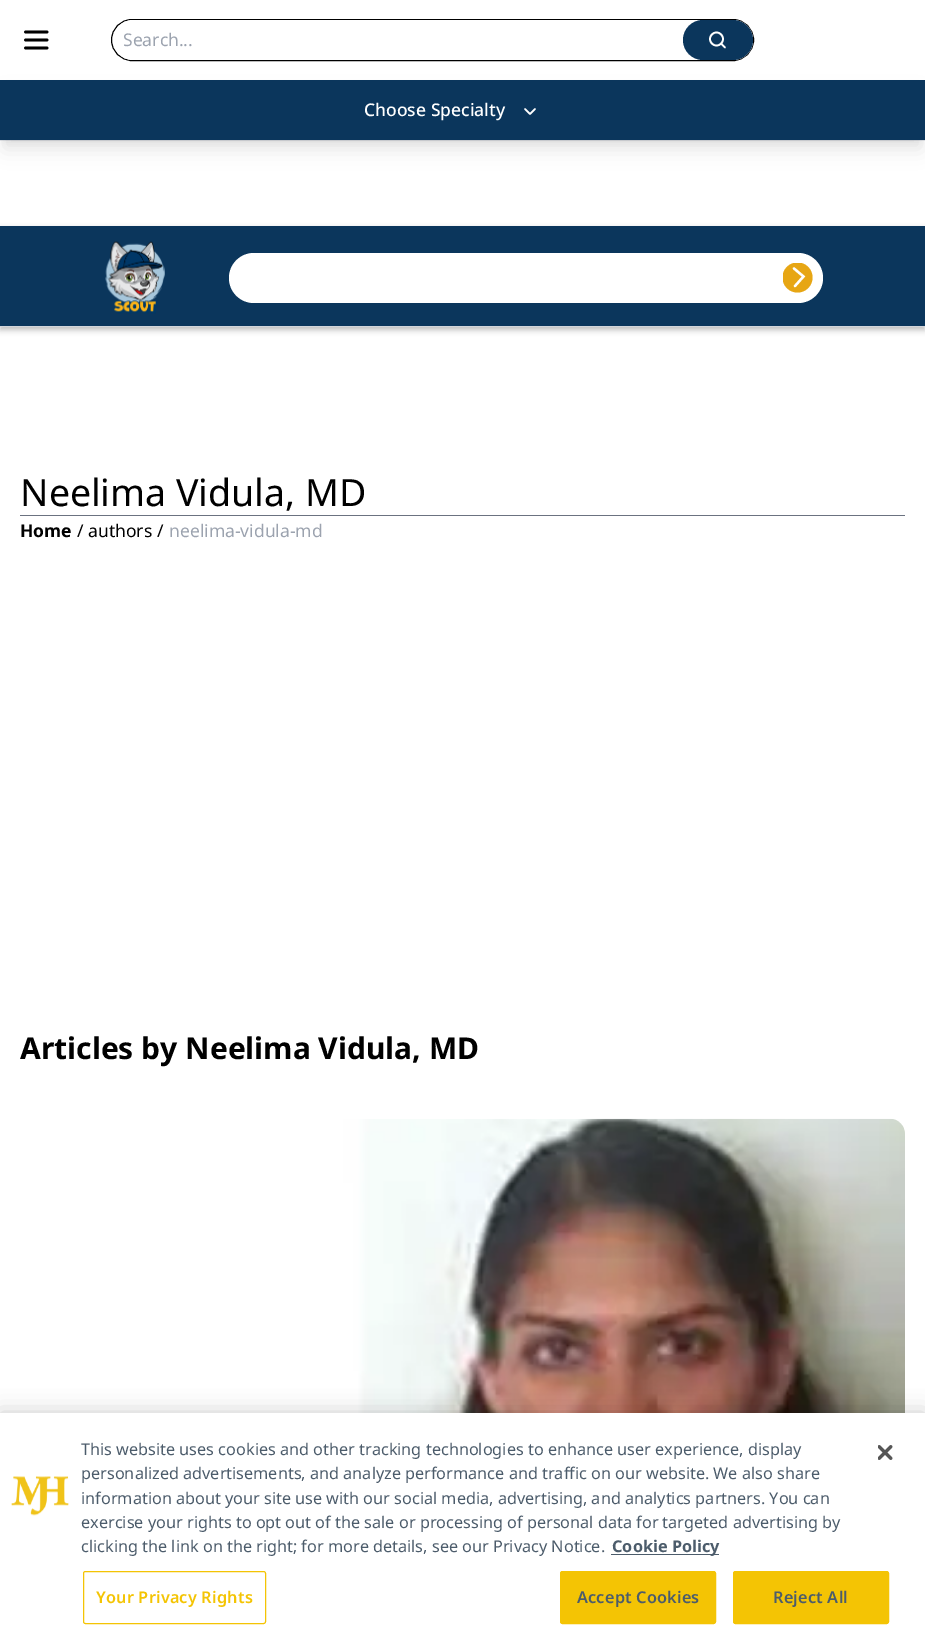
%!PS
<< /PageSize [925 1649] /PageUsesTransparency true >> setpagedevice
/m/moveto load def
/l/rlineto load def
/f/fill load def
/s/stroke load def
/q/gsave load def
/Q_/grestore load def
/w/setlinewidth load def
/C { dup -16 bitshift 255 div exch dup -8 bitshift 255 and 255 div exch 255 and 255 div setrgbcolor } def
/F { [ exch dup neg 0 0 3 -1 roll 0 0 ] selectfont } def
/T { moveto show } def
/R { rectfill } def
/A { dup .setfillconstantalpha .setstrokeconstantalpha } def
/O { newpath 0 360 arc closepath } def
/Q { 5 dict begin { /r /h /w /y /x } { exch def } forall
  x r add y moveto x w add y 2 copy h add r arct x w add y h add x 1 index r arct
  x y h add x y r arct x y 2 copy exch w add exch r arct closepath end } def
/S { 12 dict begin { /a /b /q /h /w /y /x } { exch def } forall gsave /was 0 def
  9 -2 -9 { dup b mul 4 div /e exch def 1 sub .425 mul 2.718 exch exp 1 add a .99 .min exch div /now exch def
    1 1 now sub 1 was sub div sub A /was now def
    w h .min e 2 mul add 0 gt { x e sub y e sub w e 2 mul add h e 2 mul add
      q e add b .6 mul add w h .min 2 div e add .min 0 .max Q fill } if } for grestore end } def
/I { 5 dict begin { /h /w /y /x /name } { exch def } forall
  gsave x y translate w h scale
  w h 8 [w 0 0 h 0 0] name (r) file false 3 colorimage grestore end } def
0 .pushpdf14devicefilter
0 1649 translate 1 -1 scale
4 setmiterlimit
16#FFFFFF C
0 0 925 1649 R
16#E5E7EB C
0 140 925 1 R
16#000000 C
2.7 w
1 setlinecap
1 setlinejoin
25.5 32 m 21.5 0 l 25.5 40 m 21.5 0 l 25.5 48 m 21.5 0 l s
1 w
0 setlinecap
0 setlinejoin
111.5 19.5 642 41 20.5 Q s
16#FFFFFF C
113 20 640 40 20 Q f
/NotoSans-Regular 17.5 F
16#9CA3AF C
(Search...) 123 46 T
16#0B365C C
683 20 70 40 20 Q f
16#FFFFFF C
1.7 w
716.5 39 6.5 O s
1 setlinecap
1 setlinejoin
725 47.5 m -3.5 -3.5 l s
16#000000 C
5 90 915 50 0 4 .1 S
4 96 917 53 0 9.5 .1 S
16#0B365C C
0 80 925 60 R
/NotoSans-Medium 17.5 F
16#FFFFFF C
(Choose Specialty) 364 116 T
525 109 m 5 5 l 5 -5 l s
16#000000 C
0 229 925 101 0 3 .25 S
16#0B365C C
0 226 925 100 R
16#D1D5DB C
0 326 925 1 R
(1.rgb) 105 241 60 73 I
16#FFFFFF C
229 253 594 50 25 Q f
q
783 263 30 30 rectclip
16#E7A614 C
797.5 277.5 15 O f
Q_
2.3 w
0 setlinejoin
794 268.5 m 9.5 8 l -8.5 9.5 l s
/NotoSans-Regular 37.5 F
16#000000 C
(Neelima Vidula, MD) 20 506 T
16#6B7280 C
20 515 885 1 R
/NotoSans-Bold 17.5 F
16#000000 C
(Home) 20 537 T
/NotoSans-Regular 17.5 F
(/) 77 537 T
(authors) 88 537 T
(/) 157 537 T
16#9CA3AF C
(neelima-vidula-md) 169 537 T
/NotoSans-Bold 30 F
16#000000 C
(Articles by Neelima Vidula, MD) 20 1059 T
(2.rgb) 333 1118 572 295 I
0 1413 925 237 0 11 .2 S
16#FFFFFF C
0 1413 925 236 R
(3.rgb) 11 1476 58 40 I
/NotoSans-Regular 16.25 F
16#4C5C6B C
(This website uses cookies and other tracking technologies to enhance user experience, display) 81 1455 T
(personalized advertisements, and analyze performance and traffic on our website. We also share) 81 1479 T
(information about your site use with our social media, advertising, and analytics partners. You can) 81 1504 T
(exercise your rights to opt out of the sale or processing of personal data for targeted advertising by) 81 1528 T
(clicking the link on the right; for more details, see our Privacy Notice.) 81 1552 T
611 1554 108 1 R
/NotoSans-Bold 16.25 F
(Cookie Policy) 612 1552 T
16#F4C404 C
1 w
0 setlinecap
83.5 1571.5 182 52 2 Q s
/NotoSans-SemiBold 16.25 F
96 1603 m .2 0 (Your Privacy Rights) ashow
560.5 1571.5 155 52 2 Q q f Q_
s
16#4C5C6B C
577 1603 m .2 0 (Accept Cookies) ashow
16#F4C404 C
733.5 1571.5 155 52 2 Q q f Q_
s
16#4C5C6B C
773 1603 m .2 0 (Reject All) ashow
(4.rgb) 878 1445 15 15 I
.poppdf14devicefilter showpage
